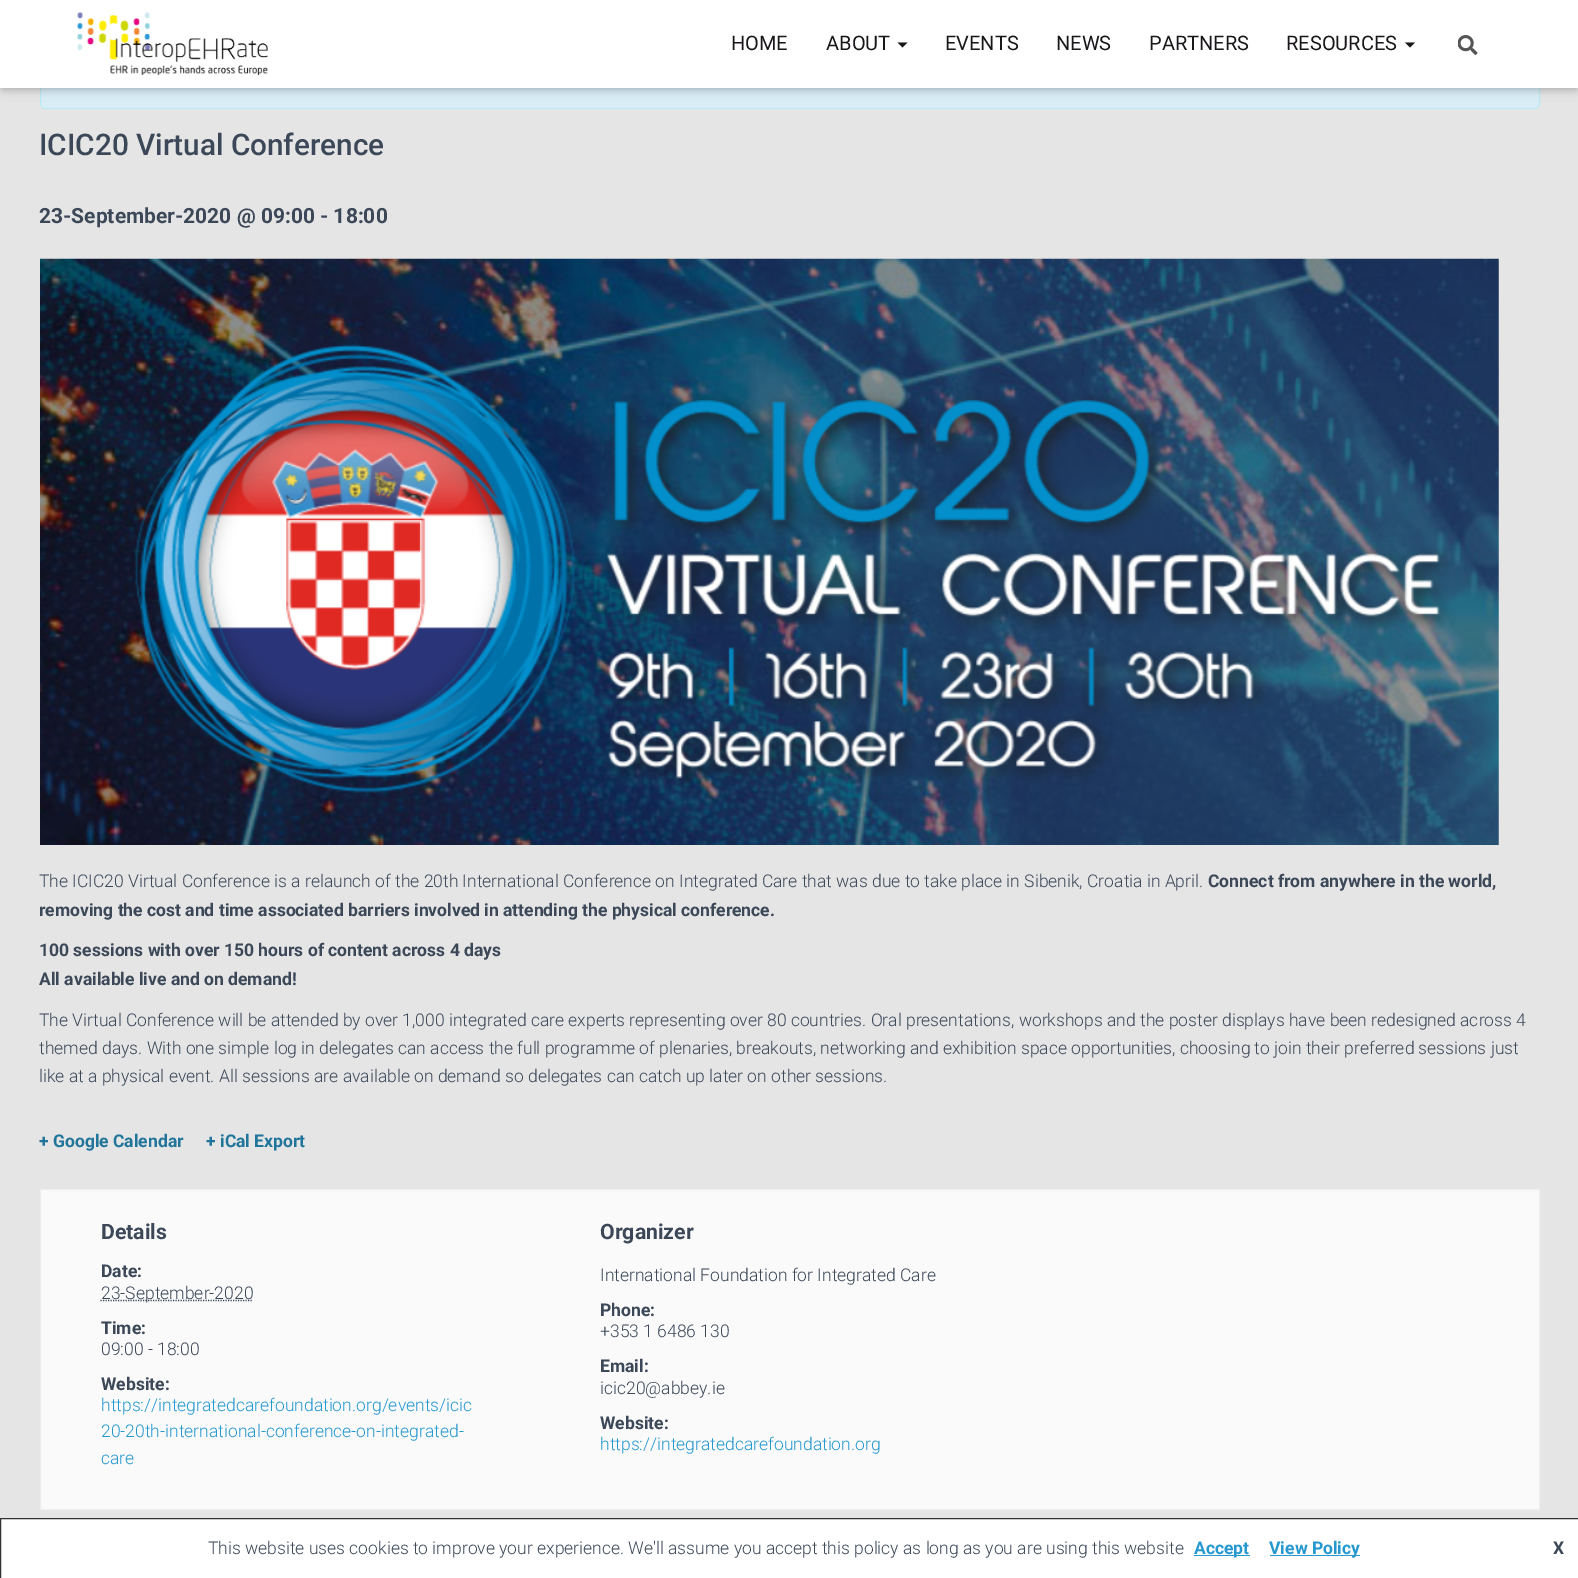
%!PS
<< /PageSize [1578 1578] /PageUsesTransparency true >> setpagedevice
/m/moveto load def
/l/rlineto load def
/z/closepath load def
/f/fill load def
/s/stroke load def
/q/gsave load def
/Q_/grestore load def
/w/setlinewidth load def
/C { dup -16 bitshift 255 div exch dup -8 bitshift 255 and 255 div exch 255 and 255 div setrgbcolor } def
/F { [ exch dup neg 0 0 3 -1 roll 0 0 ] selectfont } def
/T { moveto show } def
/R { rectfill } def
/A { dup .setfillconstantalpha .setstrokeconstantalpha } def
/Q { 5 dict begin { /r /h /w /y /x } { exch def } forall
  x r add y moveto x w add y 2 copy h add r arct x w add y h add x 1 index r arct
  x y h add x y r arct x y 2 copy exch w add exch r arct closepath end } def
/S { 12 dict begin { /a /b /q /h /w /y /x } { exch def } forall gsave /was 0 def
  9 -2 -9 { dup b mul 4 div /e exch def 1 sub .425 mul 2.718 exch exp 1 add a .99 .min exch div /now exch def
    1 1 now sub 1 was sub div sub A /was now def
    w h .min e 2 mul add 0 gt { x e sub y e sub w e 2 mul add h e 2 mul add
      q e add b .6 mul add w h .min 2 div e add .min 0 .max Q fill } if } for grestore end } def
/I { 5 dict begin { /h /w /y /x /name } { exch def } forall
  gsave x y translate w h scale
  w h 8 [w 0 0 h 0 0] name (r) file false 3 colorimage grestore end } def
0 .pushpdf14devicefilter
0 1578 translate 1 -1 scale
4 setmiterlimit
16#E5E5E5 C
0 0 1578 1578 R
16#D9EDF7 C
40.5 58.5 1499 50 4.5 Q q f Q_
16#BCE8F1 C
s
16#000000 C
3 8 1573 82 0 3 .1 S
0 1 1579 88 0 6 .12 S
8 9 1563 72 0 6 .42 S
16#FFFFFF C
0 0 1578 88 R
(1.rgb) 77 12 191 63 I
/Roboto-Regular 20 F
16#1A171B C
(HOME) 731 50 T
(ABOUT) 826 50 T
897.5 42.5 m 10 0 l -5 5 l z f
(EVENTS) 945 50 T
(NEWS) 1056 50 T
(PARTNERS) 1149 50 T
(RESOURCES) 1286 50 T
1405 42.5 m 10 0 l -5 5 l z f
(2.rgb) 1458 35 20 20 I
/Roboto-Medium 29.75 F
16#3C4858 C
(ICIC20 Virtual Conference) 39 155 T
/Roboto-Bold 21 F
(23-September-2020 @ 09:00 - 18:00) 39 223 T
(3.rgb) 40 258 1459 587 I
/Roboto-Light 17.5 F
(The ICIC20 Virtual Conference is a relaunch of the 20th International Conference on Integrated Care that was due to take place in Sibenik, Croatia in April.) 39 887 T
/Roboto-Bold 17.5 F
(Connect from anywhere in the world,) 1208 887 T
(removing the cost and time associated barriers involved in attending the physical conference.) 39 916 T
(100 sessions with over 150 hours of content across 4 days) 39 956 T
(All available live and on demand!) 39 985 T
/Roboto-Light 17.5 F
(The Virtual Conference will be attended by over 1,000 integrated care experts representing over 80 countries. Oral presentations, workshops and the poster displays have been redesigned across 4) 39 1026 T
(themed days. With one simple log in delegates can access the full programme of plenaries, breakouts, networking and exhibition space opportunities, choosing to join their preferred sessions just) 39 1054 T
(like at a physical event. All sessions are available on demand so delegates can catch up later on other sessions.) 39 1082 T
/Roboto-Bold 17.5 F
16#21759B C
(+ Google Calendar) 39 1147 T
(+ iCal Export) 206 1147 T
16#FAFAFA C
40.5 1189.5 m 1499 0 l 0 320 l -1499 0 l z q f Q_
16#EEEEEE C
s
/Roboto-Bold 21.25 F
16#3C4858 C
(Details) 101 1239 T
/Roboto-Bold 17.5 F
(Date:) 101 1277 T
1.2 w
[1.25 1.25] 0 setdash
100.5 1300.5 m 152.5 0 l s
/Roboto-Light 17.5 F
(23-September-2020) 101 1299 T
/Roboto-Bold 17.5 F
(Time:) 101 1334 T
/Roboto-Light 17.5 F
(09:00 - 18:00) 101 1355 T
/Roboto-Bold 17.5 F
(Website:) 101 1390 T
/Roboto-Light 17.5 F
16#2698D0 C
(https://integratedcarefoundation.org/events/icic) 101 1411 T
(20-20th-international-conference-on-integrated-) 101 1437 T
(care) 101 1464 T
/Roboto-Bold 21.25 F
16#3C4858 C
(Organizer) 600 1239 T
/Roboto-Light 17.5 F
(International Foundation for Integrated Care) 600 1281 T
/Roboto-Bold 17.5 F
(Phone:) 600 1316 T
/Roboto-Light 17.5 F
(+353 1 6486 130) 600 1337 T
/Roboto-Bold 17.5 F
(Email:) 600 1372 T
/Roboto-Light 17.5 F
(icic20@abbey.ie) 600 1394 T
/Roboto-Bold 17.5 F
(Website:) 600 1429 T
/Roboto-Light 17.5 F
16#2698D0 C
(https://integratedcarefoundation.org) 600 1450 T
16#FFFFFF C
.5 1518.5 m 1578 0 l 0 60 l -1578 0 l z q f Q_
16#333333 C
1 w
[] 0 setdash
s
16#3C4858 C
(This website uses cookies to improve your experience. We'll assume you accept this policy as long as you are using this website) 208 1554 T
16#2698D0 C
1194 1555 56 1 R
/Roboto-Bold 17.5 F
(Accept) 1194 1554 T
1270 1555 90 1 R
(View Policy) 1269 1554 T
16#3C4858 C
(X) 1553 1554 T
.poppdf14devicefilter showpage
